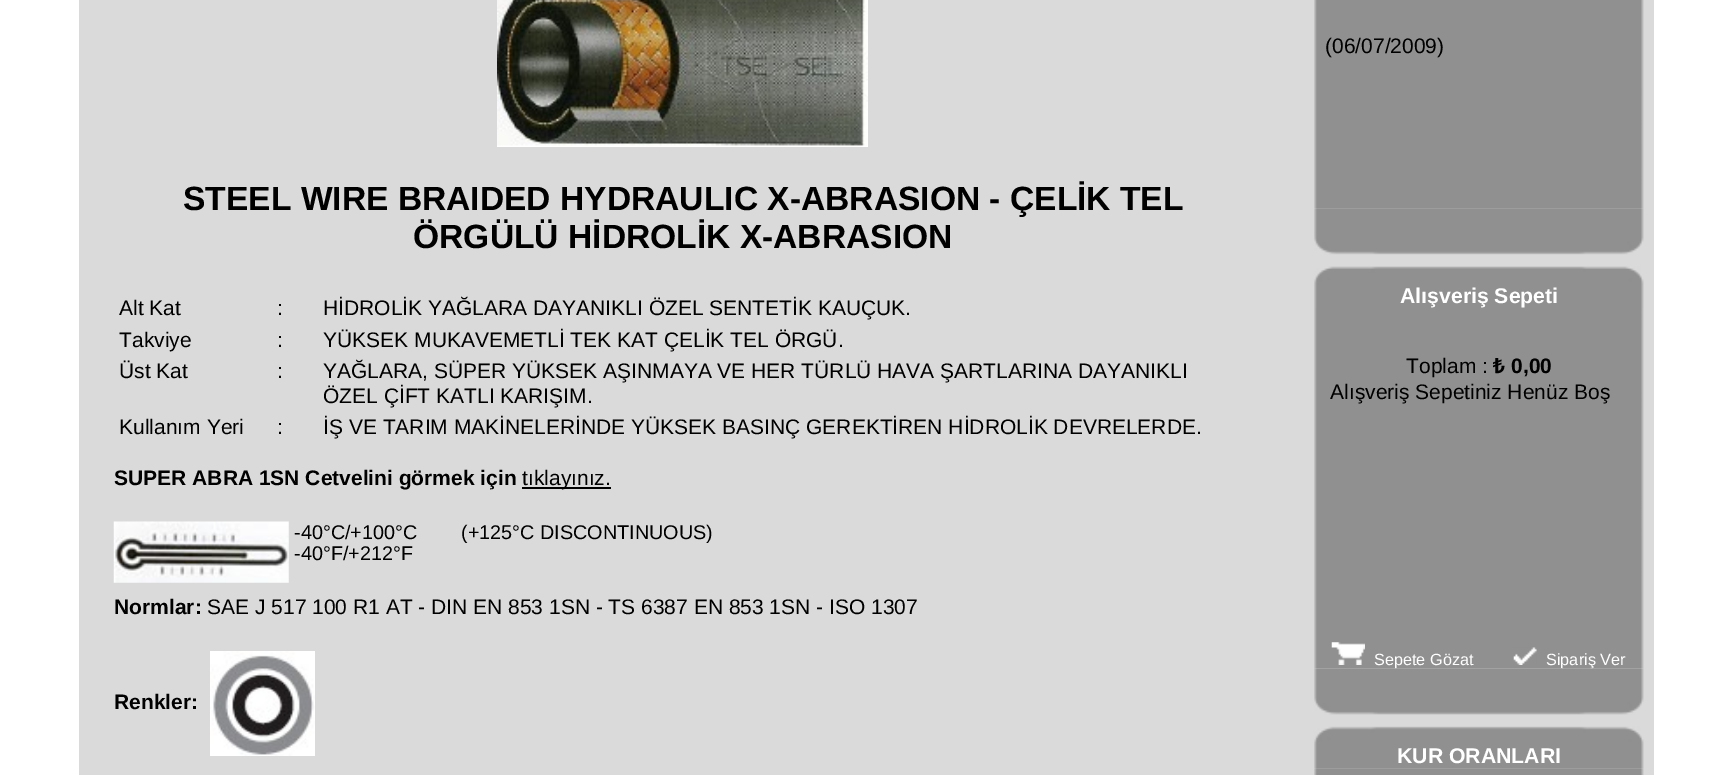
%!PS
<< /PageSize [1731 775] >> setpagedevice
/C { dup -16 bitshift 255 div exch dup -8 bitshift 255 and 255 div exch 255 and 255 div setrgbcolor } def
/F { [ exch dup neg 0 0 3 -1 roll 0 0 ] selectfont } def
/T { moveto show } def
/R { rectfill } def
/I { 5 dict begin { /h /w /y /x /name } { exch def } forall
  gsave x y translate w h scale
  w h 8 [w 0 0 h 0 0] name (r) file false 3 colorimage grestore end } def
0 775 translate 1 -1 scale
4 setmiterlimit
16#FFFFFF C
0 0 1731 775 R
16#DADADA C
79 0 1575 775 R
(1.rgb) 497 0 371 147 I
/LiberationSans-Bold 33.6 F
16#000000 C
(STEEL WIRE BRAIDED HYDRAULIC X-ABRASION - ÇELİK TEL) 183 210 T
(ÖRGÜLÜ HİDROLİK X-ABRASION) 413 248 T
/LiberationSans-Regular 21 F
(Alt Kat) 119 315 T
(:) 277 315 T
(HİDROLİK YAĞLARA DAYANIKLI ÖZEL SENTETİK KAUÇUK.) 323 315 T
(Takviye) 119 347 T
(:) 277 347 T
(YÜKSEK MUKAVEMETLİ TEK KAT ÇELİK TEL ÖRGÜ.) 323 347 T
(Üst Kat) 119 378 T
(:) 277 378 T
(YAĞLARA, SÜPER YÜKSEK AŞINMAYA VE HER TÜRLÜ HAVA ŞARTLARINA DAYANIKLI) 323 378 T
(ÖZEL ÇİFT KATLI KARIŞIM.) 323 403 T
(Kullanım Yeri) 119 434 T
(:) 277 434 T
(İŞ VE TARIM MAKİNELERİNDE YÜKSEK BASINÇ GEREKTİREN HİDROLİK DEVRELERDE.) 323 434 T
/LiberationSans-Bold 21 F
(SUPER ABRA 1SN Cetvelini görmek için) 114 485 T
522 487 89 2 R
/LiberationSans-Regular 21 F
(tıklayınız.) 522 485 T
(2.rgb) 113 521 176 62 I
/LiberationSans-Regular 19.8 F
(-40°C/+100°C        \(+125°C DISCONTINUOUS\)) 294 539 T
(-40°F/+212°F) 294 560 T
/LiberationSans-Bold 21 F
(Normlar:) 114 614 T
/LiberationSans-Regular 21 F
(SAE J 517 100 R1 AT - DIN EN 853 1SN - TS 6387 EN 853 1SN - ISO 1307) 207 614 T
/LiberationSans-Bold 21 F
(Renkler:) 114 709 T
(3.rgb) 210 651 105 105 I
(4.rgb) 1314 0 330 209 I
/LiberationSans-Regular 21 F
(\(06/07/2009\)) 1325 53 T
(5.rgb) 1314 208 330 47 I
(6.rgb) 1314 266 330 42 I
/LiberationSans-Bold 21.25 F
16#FFFFFF C
(Alışveriş Sepeti) 1400 303 T
(7.rgb) 1314 308 330 361 I
/LiberationSans-Regular 21 F
16#000000 C
(Toplam :) 1406 373 T
/NotoSans-Bold 21 F
(₺) 1493 373 T
/LiberationSans-Bold 21 F
(0,00) 1511 373 T
/LiberationSans-Regular 21 F
(Alışveriş Sepetiniz Henüz Boş) 1330 399 T
(8.rgb) 1331 642 34 23 I
/LiberationSans-Regular 16.25 F
16#FFFFFF C
(Sepete Gözat) 1374 665 T
(9.rgb) 1513 647 24 18 I
(Sipariş Ver) 1546 665 T
(10.rgb) 1314 668 330 47 I
(11.rgb) 1314 726 330 43 I
/LiberationSans-Bold 21.25 F
(KUR ORANLARI) 1397 763 T
(12.rgb) 1314 768 330 7 I
showpage
